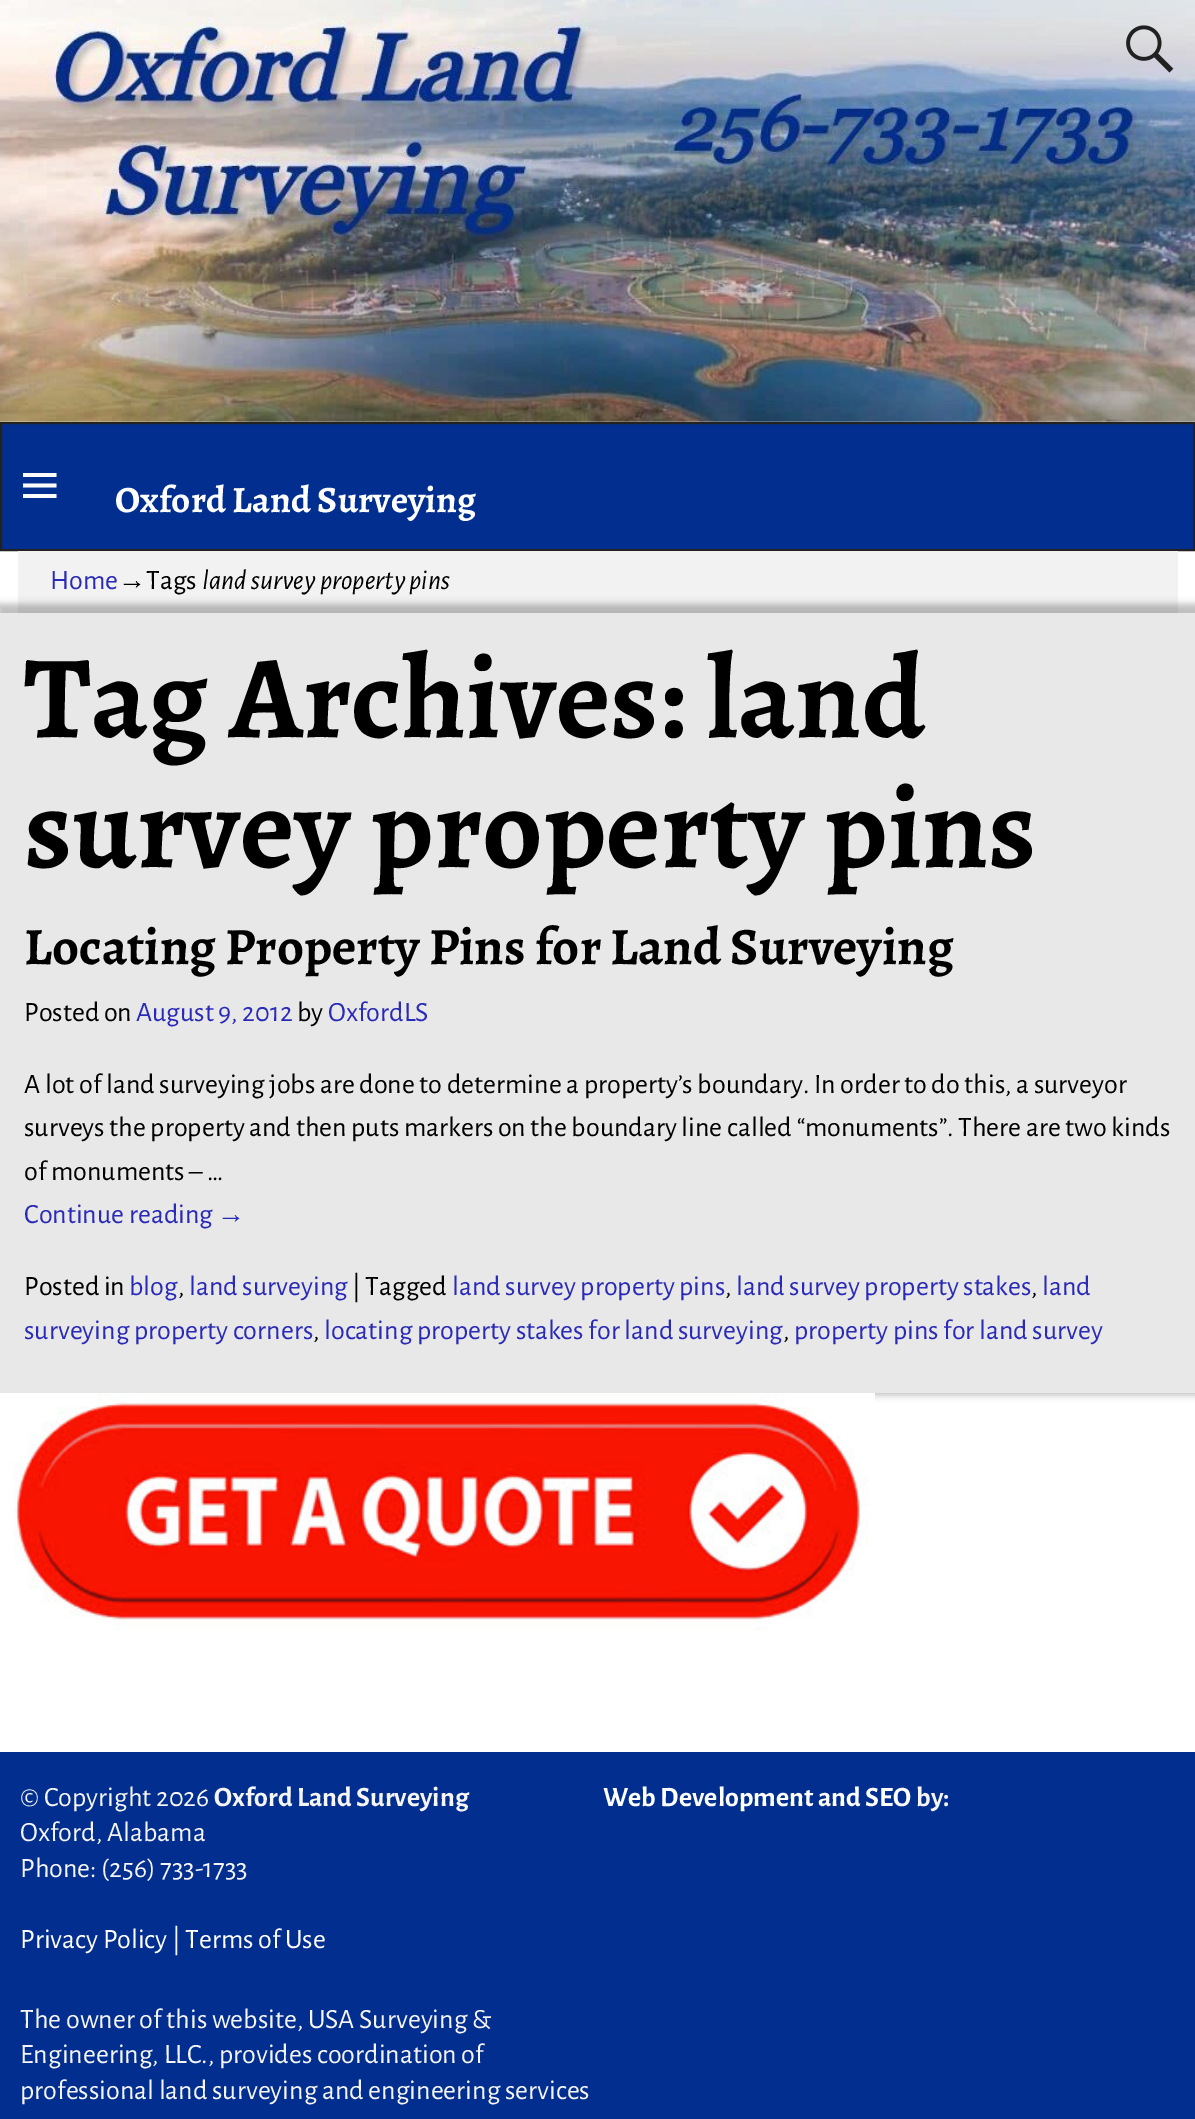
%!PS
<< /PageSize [1195 2119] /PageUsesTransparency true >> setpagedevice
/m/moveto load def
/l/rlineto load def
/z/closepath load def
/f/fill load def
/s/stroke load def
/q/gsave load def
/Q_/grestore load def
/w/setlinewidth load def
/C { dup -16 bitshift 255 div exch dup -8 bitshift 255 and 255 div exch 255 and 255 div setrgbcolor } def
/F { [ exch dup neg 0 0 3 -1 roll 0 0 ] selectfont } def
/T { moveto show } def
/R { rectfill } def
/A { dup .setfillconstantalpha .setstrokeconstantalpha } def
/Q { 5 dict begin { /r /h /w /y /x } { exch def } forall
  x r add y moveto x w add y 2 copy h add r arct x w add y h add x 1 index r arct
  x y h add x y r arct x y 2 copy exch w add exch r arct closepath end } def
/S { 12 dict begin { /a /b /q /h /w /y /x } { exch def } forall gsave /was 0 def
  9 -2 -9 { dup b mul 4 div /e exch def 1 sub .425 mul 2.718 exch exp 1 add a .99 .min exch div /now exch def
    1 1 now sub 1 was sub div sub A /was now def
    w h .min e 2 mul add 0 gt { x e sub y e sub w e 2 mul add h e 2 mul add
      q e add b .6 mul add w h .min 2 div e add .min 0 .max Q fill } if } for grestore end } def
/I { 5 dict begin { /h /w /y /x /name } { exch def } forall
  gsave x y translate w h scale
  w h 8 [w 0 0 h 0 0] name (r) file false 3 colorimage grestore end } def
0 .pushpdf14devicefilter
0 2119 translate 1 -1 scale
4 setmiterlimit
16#FFFFFF C
0 0 1195 2119 R
(1.rgb) 0 0 1195 422 I
(2.rgb) 1126 25 48 48 I
16#022F8F C
1 423 m 1193 0 l 0 127 l -1193 0 l z q f Q_
16#222222 C
2 w
s
16#FCFCFC C
23 498 m 0 -4 l 33.5 0 l 0 4 l z 23 473 m 33.5 0 l 0 4 l -33.5 0 l z 23 487.5 m 0 -4 l 33.5 0 l 0 4 l z f
/Alegreya-Bold 37.25 F
16#FFFFFF C
(Oxford Land Surveying) 115 512 T
16#F2F2F2 C
18 551 1160 62 R
/AlegreyaSans-Regular 28 F
16#2A2AB8 C
(Home) 50 589 T
/LiberationSans-Regular 28 F
16#000000 C
(→) 118 589 T
/AlegreyaSans-Regular 28 F
(Tags) 146 589 T
/AlegreyaSans-Italic 28 F
(land survey property pins) 202 589 T
-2 604 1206 791 0 3.5 .25 S
16#E8E8E8 C
0 613 1195 780 R
/Alegreya-Bold 118.1 F
16#000000 C
(Tag Archives: land) 24 737 T
(survey property pins) 24 867 T
/Alegreya-Bold 52.5 F
(Locating Property Pins for Land Surveying) 24 964 T
/AlegreyaSans-Regular 28 F
(Posted on) 24 1021 T
16#2A2AB8 C
(August 9, 2012) 136 1021 T
16#000000 C
(by) 297 1021 T
16#2A2AB8 C
(OxfordLS) 328 1021 T
16#000000 C
(A lot of land surveying jobs are done to determine a property’s boundary. In order to do this, a surveyor) 24 1093 T
(surveys the property and then puts markers on the boundary line called “monuments”. There are two kinds) 24 1136 T
(of monuments – …) 24 1180 T
16#2A2AB8 C
(Continue reading) 24 1223 T
/LiberationSans-Regular 28 F
(→) 217 1223 T
/AlegreyaSans-Regular 28 F
16#000000 C
(Posted in) 24 1295 T
16#2A2AB8 C
(blog) 129 1295 T
16#000000 C
(,) 178 1295 T
16#2A2AB8 C
(land surveying) 189 1295 T
16#000000 C
(| Tagged) 352 1295 T
16#2A2AB8 C
(land survey property pins) 452 1295 T
16#000000 C
(,) 725 1295 T
16#2A2AB8 C
(land survey property stakes) 736 1295 T
16#000000 C
(,) 1031 1295 T
16#2A2AB8 C
(land) 1042 1295 T
(surveying property corners) 24 1339 T
16#000000 C
(,) 313 1339 T
16#2A2AB8 C
(locating property stakes for land surveying) 324 1339 T
16#000000 C
(,) 783 1339 T
16#2A2AB8 C
(property pins for land survey) 794 1339 T
(3.rgb) 0 1393 875 238 I
16#022F8F C
0 1752 1195 367 R
16#F5F5F5 C
(© Copyright 2026) 20 1806 T
/AlegreyaSans-Bold 28 F
(Oxford Land Surveying) 214 1806 T
/AlegreyaSans-Regular 28 F
(Oxford, Alabama) 20 1841 T
(Phone: \(256\) 733-1733) 20 1877 T
16#FFFFFF C
(Privacy Policy) 20 1948 T
16#F5F5F5 C
(|) 172 1948 T
16#FFFFFF C
(Terms of Use) 185 1948 T
/AlegreyaSans-Bold 28 F
(Web Development and SEO) 603 1806 T
16#F5F5F5 C
(by:) 916 1806 T
/AlegreyaSans-Regular 28 F
(The owner of this website, USA Surveying &) 20 2028 T
(Engineering, LLC., provides coordination of) 20 2063 T
(professional land surveying and engineering services) 20 2099 T
.poppdf14devicefilter showpage
